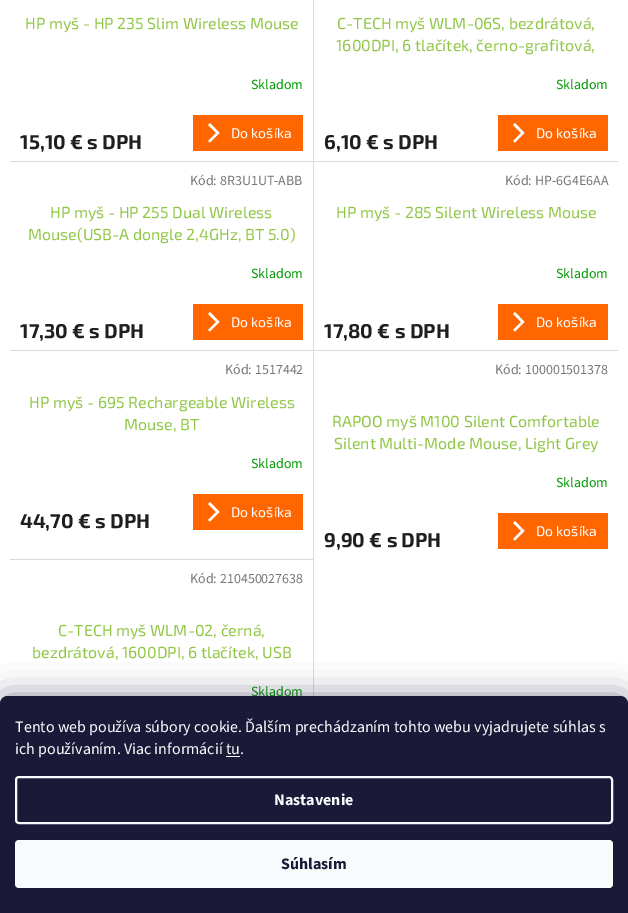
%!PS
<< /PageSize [628 913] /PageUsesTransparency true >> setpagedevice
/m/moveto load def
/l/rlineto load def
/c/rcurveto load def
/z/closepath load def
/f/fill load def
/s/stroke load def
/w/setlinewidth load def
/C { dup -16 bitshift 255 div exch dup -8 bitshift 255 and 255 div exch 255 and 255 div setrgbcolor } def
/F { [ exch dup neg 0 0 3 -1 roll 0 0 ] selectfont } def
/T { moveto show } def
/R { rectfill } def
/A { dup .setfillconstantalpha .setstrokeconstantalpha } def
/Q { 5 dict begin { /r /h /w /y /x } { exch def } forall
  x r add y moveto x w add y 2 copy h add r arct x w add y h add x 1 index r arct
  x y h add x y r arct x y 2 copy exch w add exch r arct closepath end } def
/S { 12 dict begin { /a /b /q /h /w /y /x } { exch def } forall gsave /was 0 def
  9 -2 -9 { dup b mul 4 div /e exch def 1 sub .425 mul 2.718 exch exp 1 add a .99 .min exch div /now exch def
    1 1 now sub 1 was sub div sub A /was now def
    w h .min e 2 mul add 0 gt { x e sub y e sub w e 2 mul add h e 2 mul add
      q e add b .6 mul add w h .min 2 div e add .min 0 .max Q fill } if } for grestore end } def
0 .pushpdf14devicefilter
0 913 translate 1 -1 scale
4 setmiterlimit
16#FFFFFF C
0 0 628 913 R
16#DADADA C
313 0 1 161 R
/Exo2-Regular 16 F
16#90C646 C
(HP myš - HP 235 Slim Wireless Mouse) 25 29 T
/SourceSans3-Regular 14 F
16#009901 C
(Skladom) 251 89 T
/Exo2-Bold 20 F
16#1F1F1F C
(15,10 € s DPH) 20 149 T
16#FF6600 C
193 115 110 36 R
16#FFFFFF C
210 142.5 m -2 -1.5 l 8 -8 l -8 -8 l 2 -2 l 9.5 10 l z f
/Exo2-Regular 14 F
(Do košíka) 231 138 T
/Exo2-Regular 16 F
16#90C646 C
(C-TECH myš WLM-06S, bezdrátová,) 337 29 T
(1600DPI, 6 tlačítek, černo-grafitová,) 336 51 T
/SourceSans3-Regular 14 F
16#009901 C
(Skladom) 556 89 T
/Exo2-Bold 20 F
16#1F1F1F C
(6,10 € s DPH) 324 149 T
16#FF6600 C
498 115 110 36 R
16#FFFFFF C
515 142.5 m -2 -1.5 l 8 -8 l -8 -8 l 2 -2 l 9.5 10 l z f
/Exo2-Regular 14 F
(Do košíka) 536 138 T
16#DADADA C
10 161 608 1 R
313 161 1 189 R
/SourceSans3-Regular 14 F
16#767676 C
(Kód: 8R3U1UT-ABB) 190 185 T
/Exo2-Regular 16 F
16#90C646 C
(HP myš - HP 255 Dual Wireless) 50 218 T
(Mouse\(USB-A dongle 2,4GHz, BT 5.0\)) 28 240 T
/SourceSans3-Regular 14 F
16#009901 C
(Skladom) 251 278 T
/Exo2-Bold 20 F
16#1F1F1F C
(17,30 € s DPH) 20 338 T
16#FF6600 C
193 304 110 36 R
16#FFFFFF C
210 331.5 m -2 -1.5 l 8 -8 l -8 -8 l 2 -2 l 9.5 10 l z f
/Exo2-Regular 14 F
(Do košíka) 231 327 T
/SourceSans3-Regular 14 F
16#767676 C
(Kód: HP-6G4E6AA) 505 185 T
/Exo2-Regular 16 F
16#90C646 C
(HP myš - 285 Silent Wireless Mouse) 336 218 T
/SourceSans3-Regular 14 F
16#009901 C
(Skladom) 556 278 T
/Exo2-Bold 20 F
16#1F1F1F C
(17,80 € s DPH) 324 338 T
16#FF6600 C
498 304 110 36 R
16#FFFFFF C
515 331.5 m -2 -1.5 l 8 -8 l -8 -8 l 2 -2 l 9.5 10 l z f
/Exo2-Regular 14 F
(Do košíka) 536 327 T
16#DADADA C
10 350 608 1 R
313 350 1 209 R
/SourceSans3-Regular 14 F
16#767676 C
(Kód: 1517442) 225 374 T
/Exo2-Regular 16 F
16#90C646 C
(HP myš - 695 Rechargeable Wireless) 29 408 T
(Mouse, BT) 124 430 T
/SourceSans3-Regular 14 F
16#009901 C
(Skladom) 251 468 T
/Exo2-Bold 20 F
16#1F1F1F C
(44,70 € s DPH) 20 528 T
16#FF6600 C
193 494 110 36 R
16#FFFFFF C
210 521.5 m -2 -1.5 l 8 -8 l -8 -8 l 2 -2 l 9.5 10 l z f
/Exo2-Regular 14 F
(Do košíka) 231 517 T
/SourceSans3-Regular 14 F
16#767676 C
(Kód: 100001501378) 495 374 T
/Exo2-Regular 16 F
16#90C646 C
(RAPOO myš M100 Silent Comfortable) 332 427 T
(Silent Multi-Mode Mouse, Light Grey) 334 449 T
/SourceSans3-Regular 14 F
16#009901 C
(Skladom) 556 487 T
/Exo2-Bold 20 F
16#1F1F1F C
(9,90 € s DPH) 324 547 T
16#FF6600 C
498 513 110 36 R
16#FFFFFF C
515 540.5 m -2 -1.5 l 8 -8 l -8 -8 l 2 -2 l 9.5 10 l z f
/Exo2-Regular 14 F
(Do košíka) 536 536 T
16#DADADA C
10 559 304 1 R
313 559 1 137 R
/SourceSans3-Regular 14 F
16#767676 C
(Kód: 210450027638) 190 583 T
/Exo2-Regular 16 F
16#90C646 C
(C-TECH myš WLM-02, černá,) 58 636 T
(bezdrátová, 1600DPI, 6 tlačítek, USB) 32 658 T
/SourceSans3-Regular 14 F
16#009901 C
(Skladom) 251 696 T
16#1B1939 C
0 696 628 217 8 15 .5 S
16#1A1937 C
8 696 m 612 0 l 4.5 0 8 3.5 8 8 c 0 209 l -628 0 l 0 -209 l 0 -4.5 3.5 -8 8 -8 c z f
/SourceSans3-Regular 16 F
16#F8FAFB C
(Tento web používa súbory cookie. Ďalším prechádzaním tohto webu vyjadrujete súhlas s) 15 732 T
(ich používaním. Viac informácií tu.) 15 754 T
226 756 14 1 R
2 w
16 777 596 46 3 Q s
/SourceSans3-Bold 16 F
(Nastavenie) 274 805 T
15 840 598 48 4 Q f
16#1A1937 C
(Súhlasím) 281 869 T
.poppdf14devicefilter showpage
